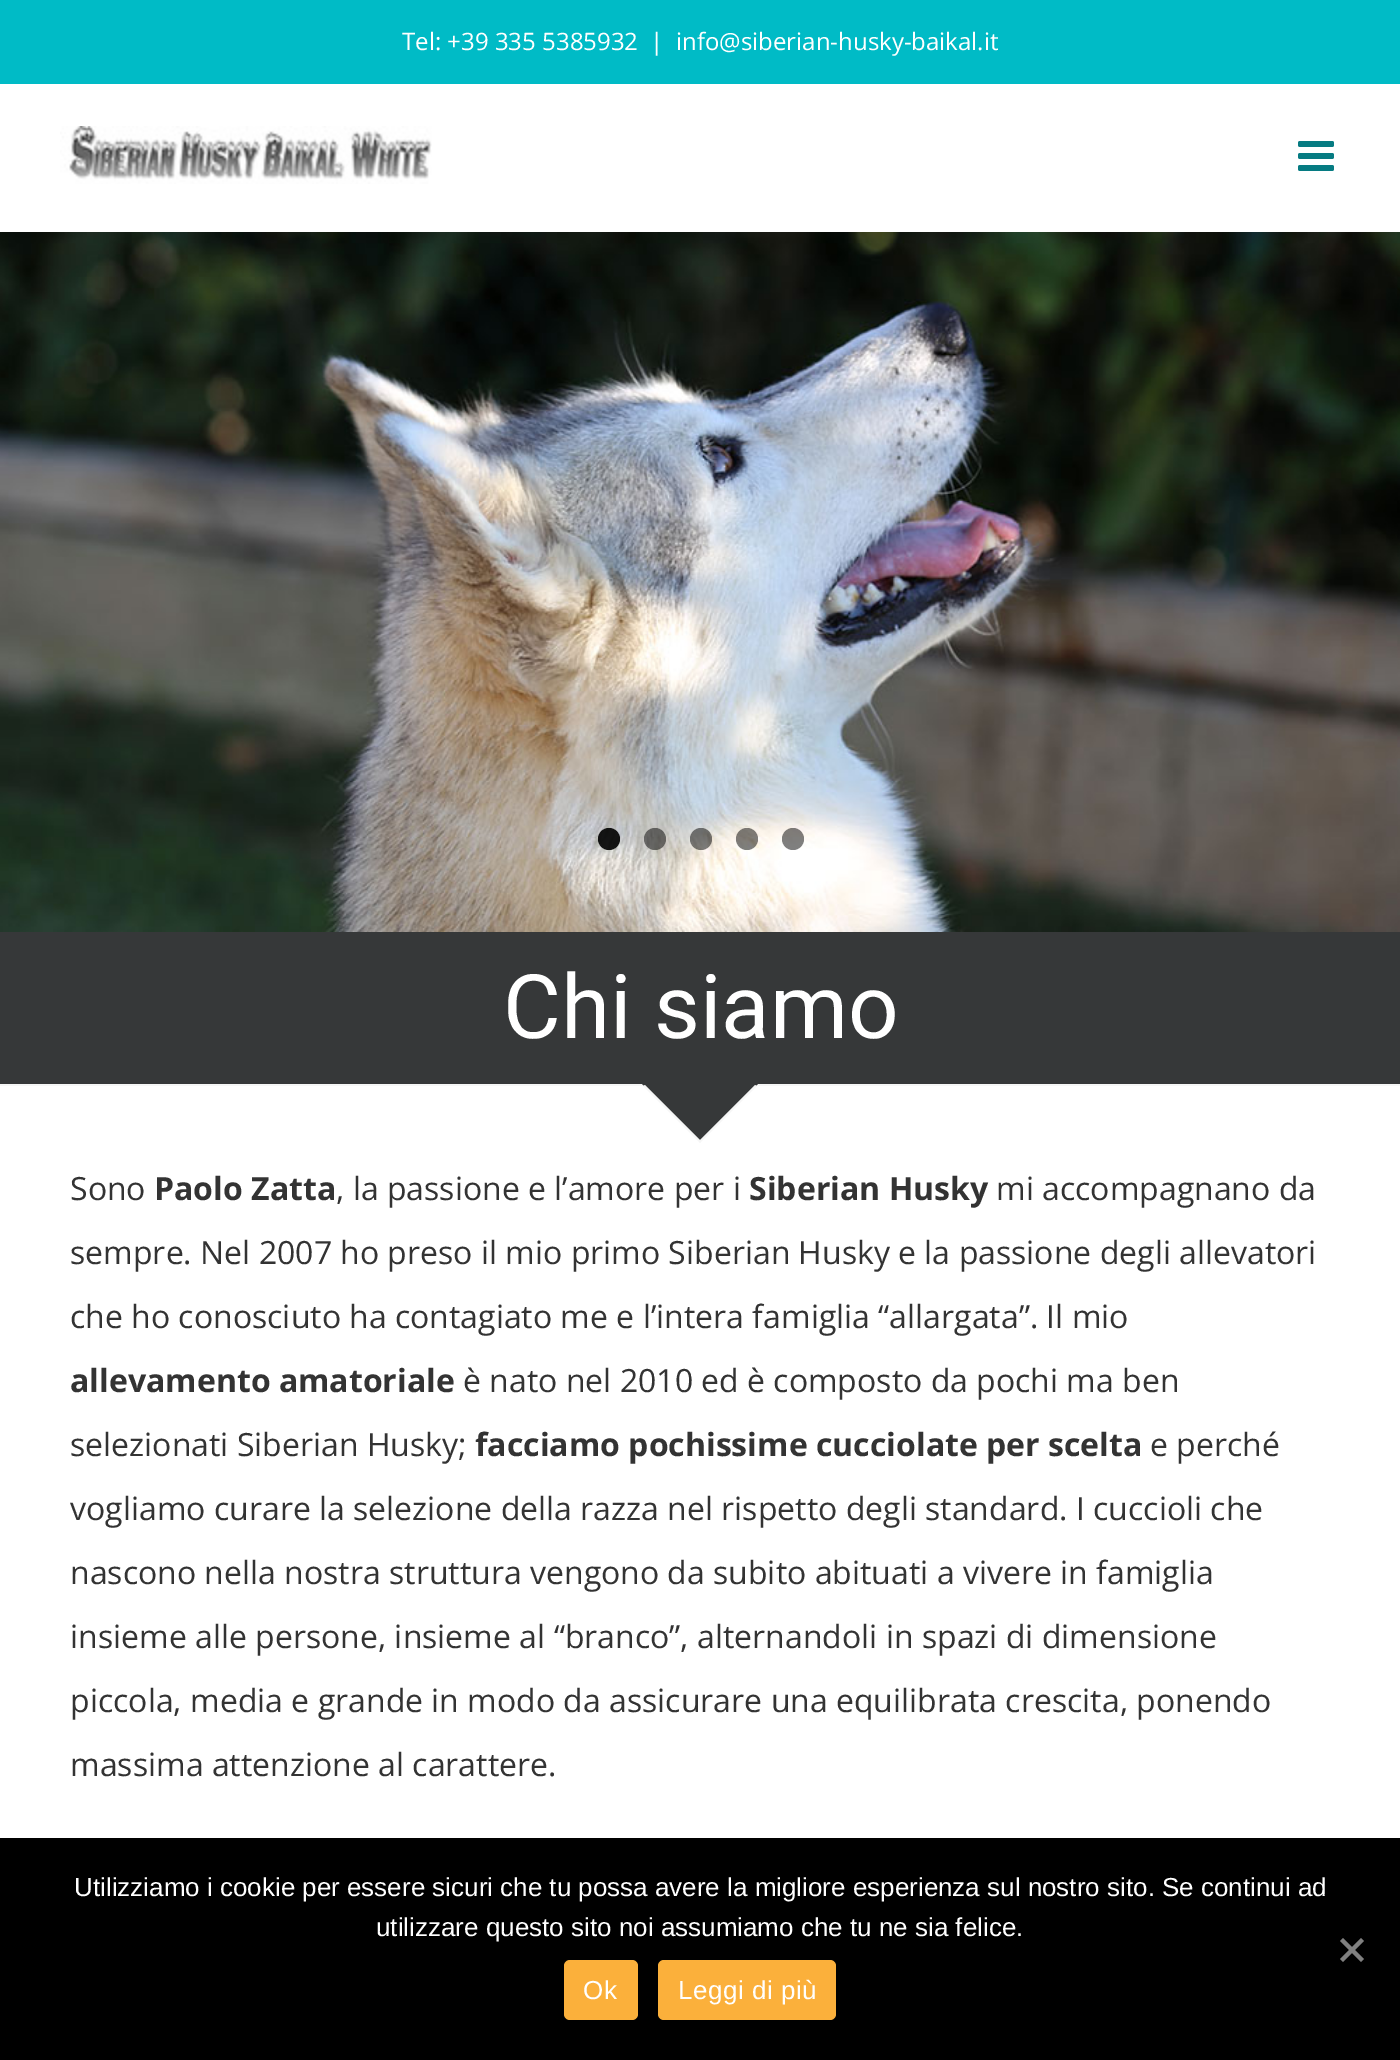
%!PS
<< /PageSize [1400 2060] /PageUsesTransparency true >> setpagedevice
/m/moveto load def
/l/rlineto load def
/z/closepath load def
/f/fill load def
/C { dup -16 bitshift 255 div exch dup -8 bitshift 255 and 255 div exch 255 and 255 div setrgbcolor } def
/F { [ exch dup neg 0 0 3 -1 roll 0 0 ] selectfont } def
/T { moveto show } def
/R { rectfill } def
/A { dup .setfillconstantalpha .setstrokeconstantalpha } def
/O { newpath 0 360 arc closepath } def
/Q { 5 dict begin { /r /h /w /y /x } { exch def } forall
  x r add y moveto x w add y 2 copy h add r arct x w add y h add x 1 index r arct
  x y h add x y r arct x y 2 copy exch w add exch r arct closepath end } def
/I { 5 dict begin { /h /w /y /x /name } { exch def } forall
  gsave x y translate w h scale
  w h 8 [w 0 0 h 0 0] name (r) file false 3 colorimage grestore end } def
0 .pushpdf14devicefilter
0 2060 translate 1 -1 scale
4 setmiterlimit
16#FFFFFF C
0 0 1400 2060 R
16#00BBC6 C
0 0 1400 84 R
/OpenSans-Regular 24 F
16#FFFFFF C
(Tel: +39 335 5385932) 402 50 T
(|) 650 50 T
(info@siberian-husky-baikal.it) 676 50 T
(1.rgb) 60 126 372 58 I
(2.rgb) 1298 141 36 30 I
(3.rgb) 0 232 1400 700 I
0.9 A
16#000000 C
609 839 11 O f
0.5 A
655 839 11 O f
701 839 11 O f
747 839 11 O f
793 839 11 O f
1 A
16#363839 C
0 932 1400 152 R
/Roboto-Regular 89 F
16#FFFFFF C
(Chi siamo) 503 1038 T
16#F6F6F6 C
0 1084 1400 2 R
16#363839 C
642 1084 m 116 0 l -58 58 l z f
16#F6F6F6 C
699 1141 m 56 -56 l 2 1 l -57 57 l z f
643 1086 m 2 -1 l 56 56 l -1 2 l z f
/OpenSans-Regular 32 F
16#333333 C
(Sono) 70 1200 T
/OpenSans-Bold 32 F
(Paolo Zatta) 154 1200 T
/OpenSans-Regular 32 F
(, la passione e l’amore per i) 336 1200 T
/OpenSans-Bold 32 F
(Siberian Husky) 749 1200 T
/OpenSans-Regular 32 F
(mi accompagnano da) 996 1200 T
(sempre. Nel 2007 ho preso il mio primo Siberian Husky e la passione degli allevatori) 70 1264 T
(che ho conosciuto ha contagiato me e l’intera famiglia “allargata”. Il mio) 70 1328 T
/OpenSans-Bold 32 F
(allevamento amatoriale) 70 1392 T
/OpenSans-Regular 32 F
(è nato nel 2010 ed è composto da pochi ma ben) 463 1392 T
(selezionati Siberian Husky;) 70 1456 T
/OpenSans-Bold 32 F
(facciamo pochissime cucciolate per scelta) 475 1456 T
/OpenSans-Regular 32 F
(e perché) 1150 1456 T
(vogliamo curare la selezione della razza nel rispetto degli standard. I cuccioli che) 70 1520 T
(nascono nella nostra struttura vengono da subito abituati a vivere in famiglia) 70 1584 T
(insieme alle persone, insieme al “branco”, alternandoli in spazi di dimensione) 70 1648 T
(piccola, media e grande in modo da assicurare una equilibrata crescita, ponendo) 70 1712 T
(massima attenzione al carattere.) 70 1776 T
16#000000 C
0 1838 1400 222 R
/LiberationSans-Regular 26 F
16#FFFFFF C
(Utilizziamo i cookie per essere sicuri che tu possa avere la migliore esperienza sul nostro sito. Se continui ad) 74 1896 T
(utilizzare questo sito noi assumiamo che tu ne sia felice.) 376 1936 T
16#808080 C
1361 1938 m 3 3 l -21 21 l -3 -3 l z f
1340 1941 m 3 -3 l 21 21 l -3 3 l z f
16#FBB03B C
564 1960 74 60 6 Q f
16#FFFFFF C
583 1999 m .5 0 (Ok) ashow
16#FBB03B C
658 1960 178 60 6 Q f
16#FFFFFF C
678 1999 m .5 0 (Leggi di più) ashow
.poppdf14devicefilter showpage
